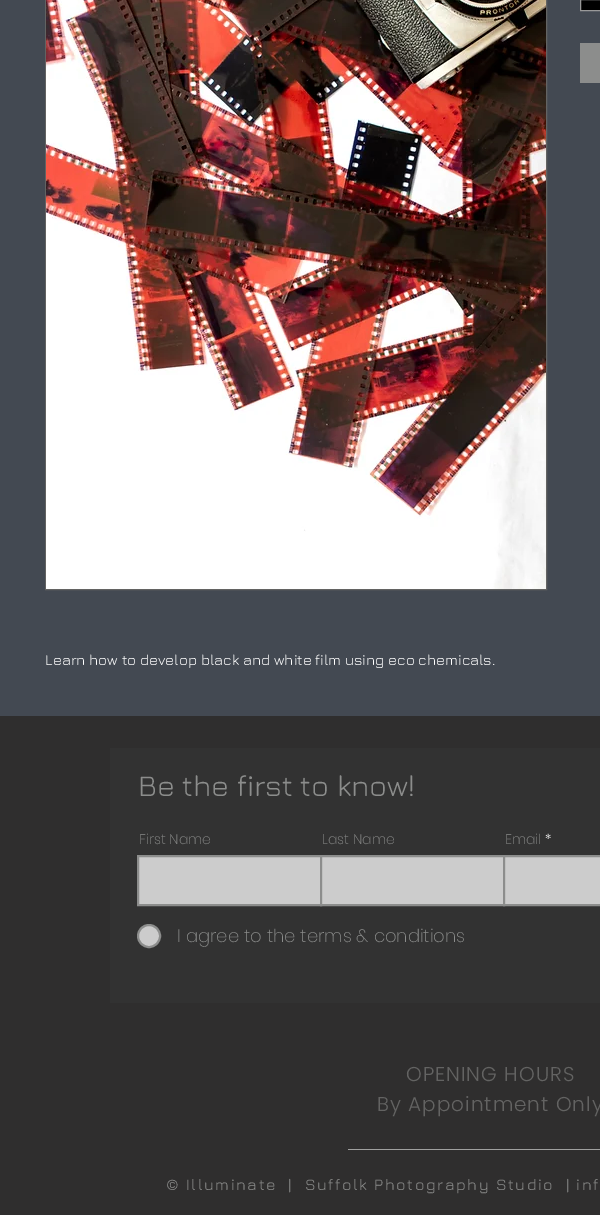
%!PS
<< /PageSize [600 1215] /PageUsesTransparency true >> setpagedevice
/m/moveto load def
/l/rlineto load def
/z/closepath load def
/f/fill load def
/s/stroke load def
/q/gsave load def
/Q_/grestore load def
/w/setlinewidth load def
/C { dup -16 bitshift 255 div exch dup -8 bitshift 255 and 255 div exch 255 and 255 div setrgbcolor } def
/F { [ exch dup neg 0 0 3 -1 roll 0 0 ] selectfont } def
/T { moveto show } def
/R { rectfill } def
/A { dup .setfillconstantalpha .setstrokeconstantalpha } def
/O { newpath 0 360 arc closepath } def
/I { 5 dict begin { /h /w /y /x /name } { exch def } forall
  gsave x y translate w h scale
  w h 8 [w 0 0 h 0 0] name (r) file false 3 colorimage grestore end } def
0 .pushpdf14devicefilter
0 1215 translate 1 -1 scale
4 setmiterlimit
16#434952 C
0 0 600 1215 R
16#000000 C
580.5 -.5 m 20 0 l 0 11 l -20 0 l z q f Q_
16#999999 C
s
16#8C8D8C C
580 43 20 40 R
16#636362 C
45.5 -.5 501 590 rectstroke
(1.rgb) 46 0 500 589 I
/Jura-Regular 15 F
16#FFFFFF C
(Learn how to develop black and white film using eco chemicals.) 45 665 T
16#2F2E2E C
0 716 600 499 R
16#323232 C
110 748 490 255 R
/Jura-Regular 30 F
16#8C8D8C C
(Be the first to know!) 138 796 T
/Poppins-ExtraLight 14 F
(First Name) 139 844 T
16#CCCCCC C
138 856 m 183 0 l 0 49 l -183 0 l z q f Q_
16#8C8D8C C
2 w
s
(Last Name) 322 844 T
0.75 A
16#FFFFFF C
321 856 m 183 0 l 0 49 l -183 0 l z f
1 A
16#8C8D8C C
321 856 m 183 0 l 0 49 l -183 0 l z s
(Email) 505 844 T
16#FFFFFF C
(*) 545 844 T
0.75 A
504 856 m 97 0 l 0 49 l -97 0 l z f
1 A
16#8C8D8C C
504 856 m 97 0 l 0 49 l -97 0 l z s
16#CCCCCC C
149 936 11 O q f Q_
16#8C8D8C C
s
/Poppins-ExtraLight 18 F
(I agree to the terms & conditions) 177 942 T
/Poppins-Light 20 F
16#636362 C
406 1081 m 1 0 (OPENING HOURS) ashow
377 1111 m 1 0 (By Appointment Only) ashow
16#A0A09F C
348 1149 252 1 R
/Jura-Regular 16 F
16#8C8D8C C
166 1190 m 1.6 0 (© Illuminate  |  Suffolk Photography Studio  | inf) ashow
.poppdf14devicefilter showpage
